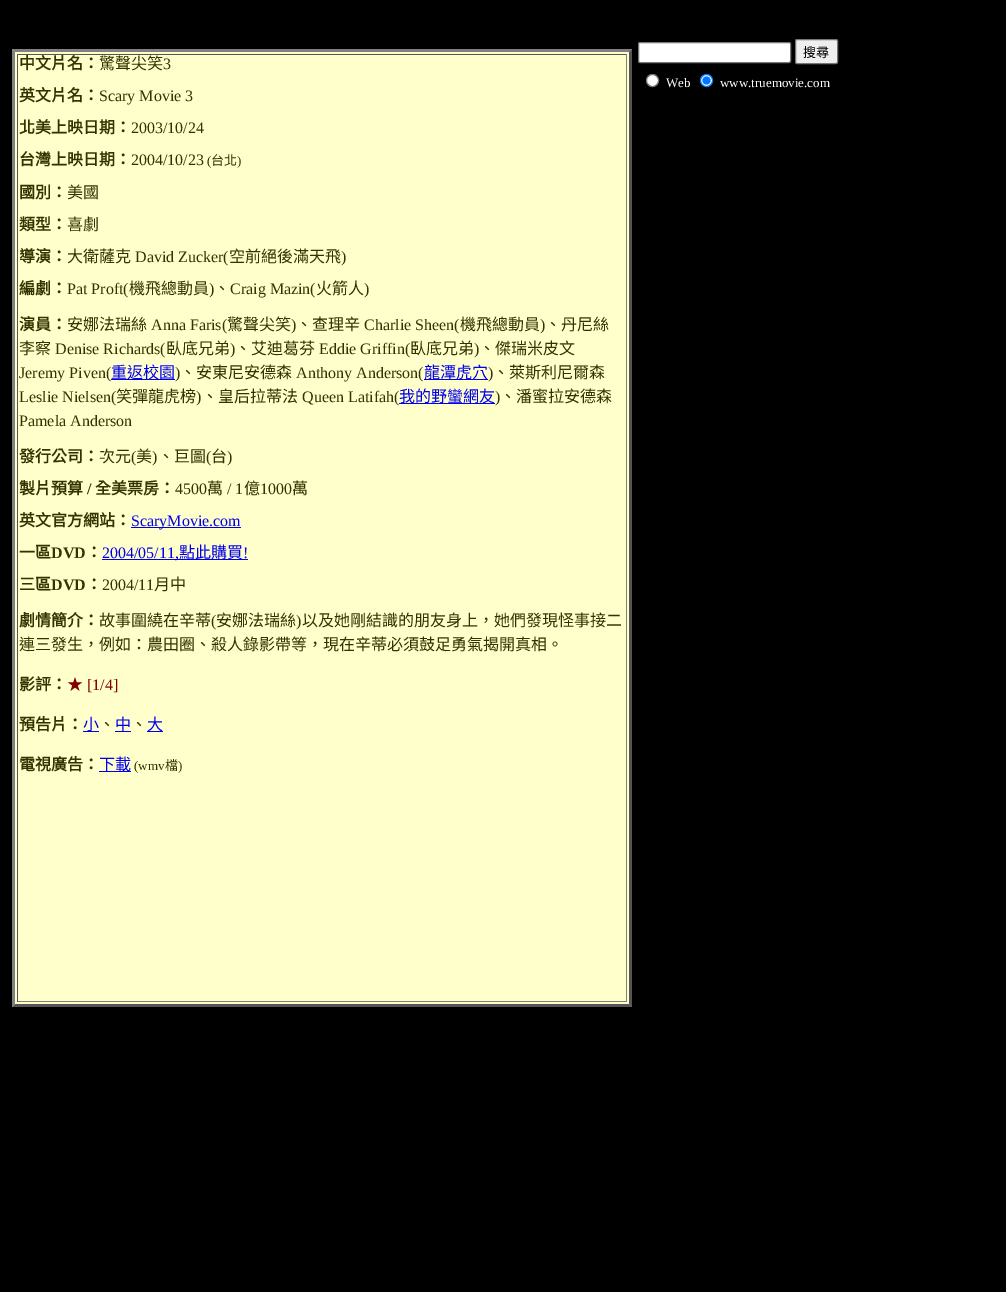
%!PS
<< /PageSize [1006 1292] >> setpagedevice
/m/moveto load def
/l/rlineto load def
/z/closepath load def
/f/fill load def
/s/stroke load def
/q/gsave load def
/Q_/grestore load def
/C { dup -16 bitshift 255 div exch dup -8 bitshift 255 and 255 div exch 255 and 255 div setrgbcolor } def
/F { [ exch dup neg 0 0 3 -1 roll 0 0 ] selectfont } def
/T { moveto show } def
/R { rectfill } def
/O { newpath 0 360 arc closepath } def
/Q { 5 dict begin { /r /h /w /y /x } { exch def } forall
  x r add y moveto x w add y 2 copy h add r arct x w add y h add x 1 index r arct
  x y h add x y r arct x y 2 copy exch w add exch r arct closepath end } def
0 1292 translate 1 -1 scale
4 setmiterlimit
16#000000 C
0 0 1006 1292 R
16#FFFFCC C
12 49 620 958 R
16#808080 C
12 49 m 620 0 l -3 3 l -614 0 l z f
16#555555 C
632 49 m 0 958 l -3 -3 l 0 -952 l z f
632 1007 m -620 0 l 3 -3 l 614 0 l z f
16#808080 C
12 1007 m 0 -958 l 3 3 l 0 952 l z f
16#555555 C
17 54 610 1 R
16#808080 C
626 54 1 948 R
17 1001 610 1 R
16#555555 C
17 54 1 948 R
/NotoSansCJKTC-Bold 16 F
16#333300 C
(中文片名：) 19 69 T
/NotoSansCJKTC-Regular 16 F
(驚聲尖笑) 99 69 T
/LiberationSerif-Regular 16 F
(3) 163 69 T
/NotoSansCJKTC-Bold 16 F
(英文片名：) 19 101 T
/LiberationSerif-Regular 16 F
(Scary Movie 3) 99 101 T
/NotoSansCJKTC-Bold 16 F
(北美上映日期：) 19 133 T
/LiberationSerif-Regular 16 F
(2003/10/24) 131 133 T
/NotoSansCJKTC-Bold 16 F
(台灣上映日期：) 19 165 T
/LiberationSerif-Regular 16 F
(2004/10/23) 131 165 T
/LiberationSerif-Regular 13 F
(\() 207 165 T
/NotoSansCJKTC-Regular 13 F
(台北) 211 165 T
/LiberationSerif-Regular 13 F
(\)) 237 165 T
/NotoSansCJKTC-Bold 16 F
(國別：) 19 198 T
/NotoSansCJKTC-Regular 16 F
(美國) 67 198 T
/NotoSansCJKTC-Bold 16 F
(類型：) 19 230 T
/NotoSansCJKTC-Regular 16 F
(喜劇) 67 230 T
/NotoSansCJKTC-Bold 16 F
(導演：) 19 262 T
/NotoSansCJKTC-Regular 16 F
(大衛薩克) 67 262 T
/LiberationSerif-Regular 16 F
(David Zucker\() 135 262 T
/NotoSansCJKTC-Regular 16 F
(空前絕後滿天飛) 229 262 T
/LiberationSerif-Regular 16 F
(\)) 341 262 T
/NotoSansCJKTC-Bold 16 F
(編劇：) 19 294 T
/LiberationSerif-Regular 16 F
(Pat Proft\() 67 294 T
/NotoSansCJKTC-Regular 16 F
(機飛總動員) 129 294 T
/LiberationSerif-Regular 16 F
(\)) 209 294 T
/NotoSansCJKTC-Regular 16 F
(、) 214 294 T
/LiberationSerif-Regular 16 F
(Craig Mazin\() 230 294 T
/NotoSansCJKTC-Regular 16 F
(火箭人) 316 294 T
/LiberationSerif-Regular 16 F
(\)) 364 294 T
/NotoSansCJKTC-Bold 16 F
(演員：) 19 330 T
/NotoSansCJKTC-Regular 16 F
(安娜法瑞絲) 67 330 T
/LiberationSerif-Regular 16 F
(Anna Faris\() 151 330 T
/NotoSansCJKTC-Regular 16 F
(驚聲尖笑) 227 330 T
/LiberationSerif-Regular 16 F
(\)) 291 330 T
/NotoSansCJKTC-Regular 16 F
(、查理辛) 296 330 T
/LiberationSerif-Regular 16 F
(Charlie Sheen\() 364 330 T
/NotoSansCJKTC-Regular 16 F
(機飛總動員) 460 330 T
/LiberationSerif-Regular 16 F
(\)) 540 330 T
/NotoSansCJKTC-Regular 16 F
(、丹尼絲) 545 330 T
(李察) 19 354 T
/LiberationSerif-Regular 16 F
(Denise Richards\() 55 354 T
/NotoSansCJKTC-Regular 16 F
(臥底兄弟) 166 354 T
/LiberationSerif-Regular 16 F
(\)) 230 354 T
/NotoSansCJKTC-Regular 16 F
(、艾迪葛芬) 235 354 T
/LiberationSerif-Regular 16 F
(Eddie Griffin\() 319 354 T
/NotoSansCJKTC-Regular 16 F
(臥底兄弟) 410 354 T
/LiberationSerif-Regular 16 F
(\)) 474 354 T
/NotoSansCJKTC-Regular 16 F
(、傑瑞米皮文) 479 354 T
/LiberationSerif-Regular 16 F
(Jeremy Piven\() 19 378 T
16#0000EE C
111 379 64 1 R
/NotoSansCJKTC-Regular 16 F
(重返校園) 111 378 T
/LiberationSerif-Regular 16 F
16#333300 C
(\)) 175 378 T
/NotoSansCJKTC-Regular 16 F
(、安東尼安德森) 180 378 T
/LiberationSerif-Regular 16 F
(Anthony Anderson\() 296 378 T
16#0000EE C
424 379 64 1 R
/NotoSansCJKTC-Regular 16 F
(龍潭虎穴) 424 378 T
/LiberationSerif-Regular 16 F
16#333300 C
(\)) 488 378 T
/NotoSansCJKTC-Regular 16 F
(、萊斯利尼爾森) 493 378 T
/LiberationSerif-Regular 16 F
(Leslie Nielsen\() 19 402 T
/NotoSansCJKTC-Regular 16 F
(笑彈龍虎榜) 116 402 T
/LiberationSerif-Regular 16 F
(\)) 196 402 T
/NotoSansCJKTC-Regular 16 F
(、皇后拉蒂法) 202 402 T
/LiberationSerif-Regular 16 F
(Queen Latifah\() 302 402 T
16#0000EE C
399 403 96 1 R
/NotoSansCJKTC-Regular 16 F
(我的野蠻網友) 399 402 T
/LiberationSerif-Regular 16 F
16#333300 C
(\)) 495 402 T
/NotoSansCJKTC-Regular 16 F
(、潘蜜拉安德森) 500 402 T
/LiberationSerif-Regular 16 F
(Pamela Anderson) 19 426 T
/NotoSansCJKTC-Bold 16 F
(發行公司：) 19 462 T
/NotoSansCJKTC-Regular 16 F
(次元) 99 462 T
/LiberationSerif-Regular 16 F
(\() 131 462 T
/NotoSansCJKTC-Regular 16 F
(美) 136 462 T
/LiberationSerif-Regular 16 F
(\)) 152 462 T
/NotoSansCJKTC-Regular 16 F
(、巨圖) 158 462 T
/LiberationSerif-Regular 16 F
(\() 206 462 T
/NotoSansCJKTC-Regular 16 F
(台) 211 462 T
/LiberationSerif-Regular 16 F
(\)) 227 462 T
/NotoSansCJKTC-Bold 16 F
(製片預算) 19 494 T
/LiberationSerif-Bold 16 F
(/) 87 494 T
/NotoSansCJKTC-Bold 16 F
(全美票房：) 95 494 T
/LiberationSerif-Regular 16 F
(4500) 175 494 T
/NotoSansCJKTC-Regular 16 F
(萬) 207 494 T
/LiberationSerif-Regular 16 F
(/ 1) 227 494 T
/NotoSansCJKTC-Regular 16 F
(億) 244 494 T
/LiberationSerif-Regular 16 F
(1000) 260 494 T
/NotoSansCJKTC-Regular 16 F
(萬) 292 494 T
/NotoSansCJKTC-Bold 16 F
(英文官方網站：) 19 526 T
16#0000EE C
131 527 110 1 R
/LiberationSerif-Regular 16 F
(ScaryMovie.com) 131 526 T
/NotoSansCJKTC-Bold 16 F
16#333300 C
(一區) 19 558 T
/LiberationSerif-Bold 16 F
(DVD) 51 558 T
/NotoSansCJKTC-Bold 16 F
(：) 86 558 T
16#0000EE C
102 559 146 1 R
/LiberationSerif-Regular 16 F
(2004/05/11,) 102 558 T
/NotoSansCJKTC-Regular 16 F
(點此購買) 179 558 T
/LiberationSerif-Regular 16 F
(!) 243 558 T
/NotoSansCJKTC-Bold 16 F
16#333300 C
(三區) 19 590 T
/LiberationSerif-Bold 16 F
(DVD) 51 590 T
/NotoSansCJKTC-Bold 16 F
(：) 86 590 T
/LiberationSerif-Regular 16 F
(2004/11) 102 590 T
/NotoSansCJKTC-Regular 16 F
(月中) 154 590 T
/NotoSansCJKTC-Bold 16 F
(劇情簡介：) 19 626 T
/NotoSansCJKTC-Regular 16 F
(故事圍繞在辛蒂) 99 626 T
/LiberationSerif-Regular 16 F
(\() 211 626 T
/NotoSansCJKTC-Regular 16 F
(安娜法瑞絲) 216 626 T
/LiberationSerif-Regular 16 F
(\)) 296 626 T
/NotoSansCJKTC-Regular 16 F
(以及她剛結識的朋友身上，她們發現怪事接二) 302 626 T
(連三發生，例如：農田圈、殺人錄影帶等，現在辛蒂必須鼓足勇氣揭開真相。) 19 650 T
/NotoSansCJKTC-Bold 16 F
(影評：) 19 690 T
/NotoSansCJKTC-Regular 16 F
16#800000 C
(★) 67 690 T
/LiberationSerif-Regular 16 F
([1/4]) 87 690 T
/NotoSansCJKTC-Bold 16 F
16#333300 C
(預告片：) 19 730 T
16#0000EE C
83 731 16 1 R
/NotoSansCJKTC-Regular 16 F
(小) 83 730 T
16#333300 C
(、) 99 730 T
16#0000EE C
115 731 16 1 R
(中) 115 730 T
16#333300 C
(、) 131 730 T
16#0000EE C
147 731 16 1 R
(大) 147 730 T
/NotoSansCJKTC-Bold 16 F
16#333300 C
(電視廣告：) 19 770 T
16#0000EE C
99 771 32 1 R
/NotoSansCJKTC-Regular 16 F
(下載) 99 770 T
/LiberationSerif-Regular 13 F
16#333300 C
(\(wmv) 134 770 T
/NotoSansCJKTC-Regular 13 F
(檔) 165 770 T
/LiberationSerif-Regular 13 F
(\)) 178 770 T
16#FFFFFF C
638.5 42.5 152 20 1.5 Q q f Q_
16#767676 C
s
16#EFEFEF C
795.5 39.5 42 24 1.5 Q q f Q_
16#767676 C
s
/NotoSansCJKTC-Regular 13 F
16#000000 C
(搜尋) 803 57 T
16#FFFFFF C
652.5 80.5 6 O q f Q_
16#767676 C
s
/LiberationSerif-Regular 13 F
16#FFFFFF C
(Web) 666 87 T
706.5 80.5 6 O q f Q_
16#0075FF C
s
706.5 80.5 4 O f
16#FFFFFF C
(www.truemovie.com) 720 87 T
showpage
